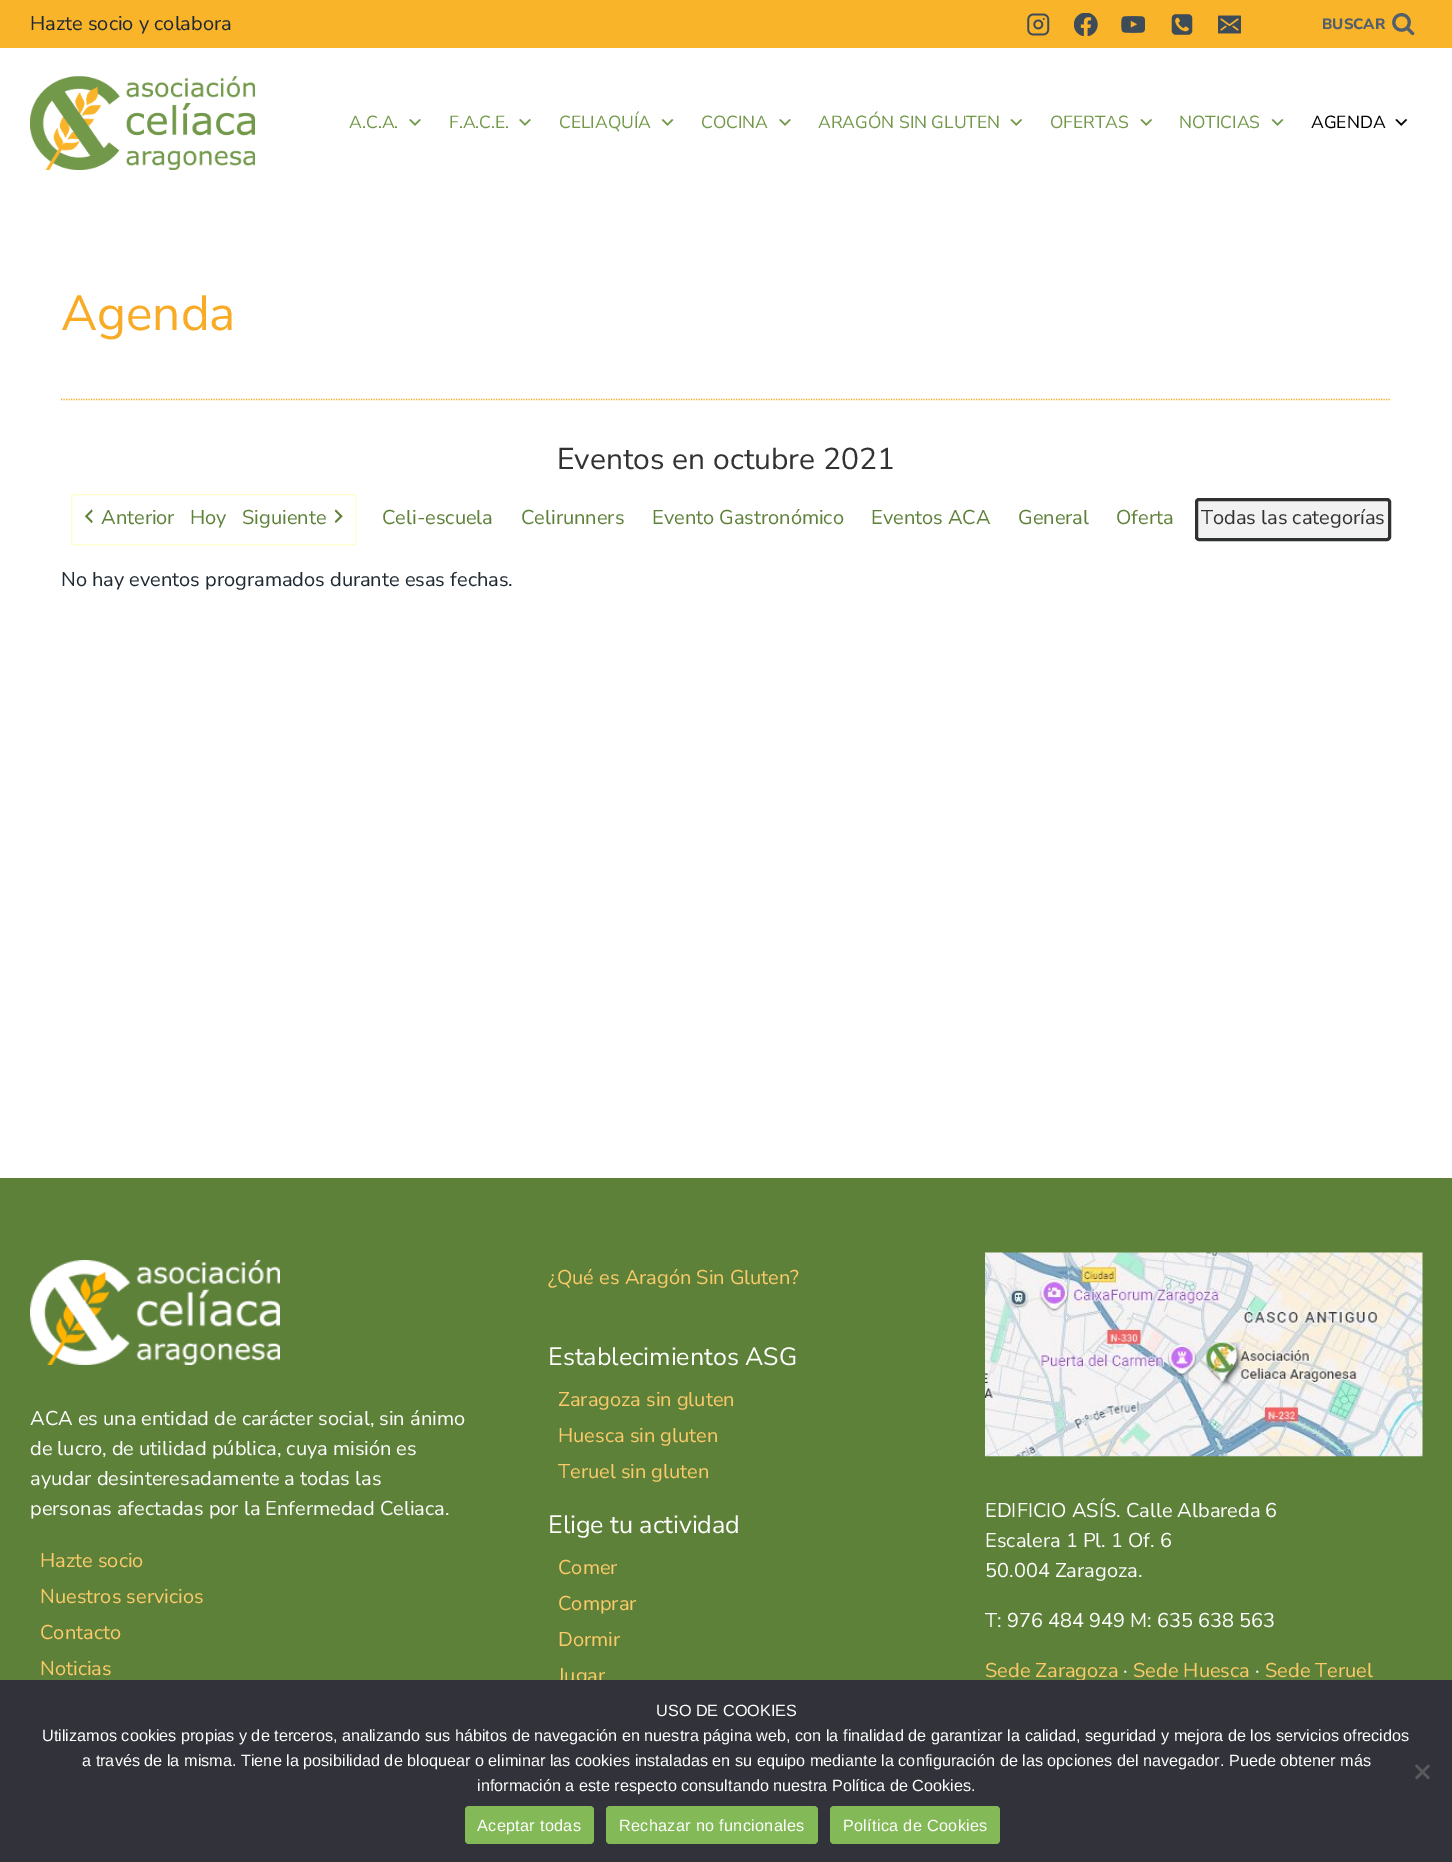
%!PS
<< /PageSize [1452 1862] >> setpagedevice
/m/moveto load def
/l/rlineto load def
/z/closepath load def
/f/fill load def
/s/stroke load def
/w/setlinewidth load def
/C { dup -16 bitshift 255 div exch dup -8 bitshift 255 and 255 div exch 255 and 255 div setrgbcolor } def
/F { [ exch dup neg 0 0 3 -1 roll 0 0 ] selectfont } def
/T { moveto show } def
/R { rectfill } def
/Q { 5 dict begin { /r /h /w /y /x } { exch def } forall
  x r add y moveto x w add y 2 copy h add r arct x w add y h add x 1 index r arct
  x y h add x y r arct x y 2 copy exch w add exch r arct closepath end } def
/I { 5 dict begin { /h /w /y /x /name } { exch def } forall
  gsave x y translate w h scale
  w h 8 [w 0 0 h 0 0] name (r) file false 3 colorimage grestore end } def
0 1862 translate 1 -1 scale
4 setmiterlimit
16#FFFFFF C
0 0 1452 1862 R
16#FAB429 C
0 0 1452 48 R
/NunitoSans-Regular 20 F
16#1F2933 C
(Hazte socio y colabora) 30 30 T
(1.rgb) 1027 13 23 23 I
(2.rgb) 1074 13 24 23 I
(3.rgb) 1121 16 24 17 I
(4.rgb) 1171 14 22 21 I
(5.rgb) 1218 15 23 19 I
/NunitoSans-ExtraBold 15 F
16#52606D C
(BUSCAR) 1322 29 T
(6.rgb) 1392 13 23 22 I
(7.rgb) 30 76 225 94 I
/NunitoSans-Regular 17.5 F
16#72984A C
(A.C.A.) 349 128 T
(8.rgb) 409 119 12 7 I
(F.A.C.E.) 449 128 T
(8.rgb) 519 119 12 7 I
(CELIAQUÍA) 559 128 T
(9.rgb) 661 119 13 7 I
(COCINA) 701 128 T
(8.rgb) 779 119 12 7 I
(ARAGÓN SIN GLUTEN) 818 128 T
(10.rgb) 1010 119 13 7 I
(OFERTAS) 1050 128 T
(10.rgb) 1140 119 13 7 I
(NOTICIAS) 1179 128 T
(9.rgb) 1271 119 13 7 I
16#000000 C
(AGENDA) 1311 128 T
(11.rgb) 1395 119 13 7 I
/NunitoSans-Regular 49.5 F
16#F9AB25 C
(Agenda) 61 330 T
1.2 w
[1.25 1.25] 0 setdash
61 399.5 m 1330 0 l s
/NunitoSans-Regular 30 F
16#313233 C
(Eventos en octubre 2021) 557 469 T
16#FFFFCC C
1 w
[] 0 setdash
71.5 494.5 284 50 rectstroke
(12.rgb) 84 509 9 15 I
/NunitoSans-Regular 20 F
16#5E813A C
(Anterior) 101 524 T
(Hoy) 190 524 T
(Siguiente) 242 524 T
(13.rgb) 334 509 9 15 I
(Celi-escuela) 382 524 T
(Celirunners) 521 524 T
(Evento Gastronómico) 652 524 T
(Eventos ACA) 871 524 T
(General) 1018 524 T
(Oferta) 1116 524 T
16#F2F2F2 C
1195 498 196 43 4 Q f
16#2F3030 C
3 w
1196.5 499.5 193 40 2.5 Q s
16#313233 C
(Todas las categorías) 1201 524 T
16#1F2933 C
(No hay eventos programados durante esas fechas.) 61 586 T
16#5E813A C
0 1178 1452 502 R
(14.rgb) 30 1260 250 105 I
16#FFFFFF C
(ACA es una entidad de carácter social, sin ánimo) 30 1425 T
(de lucro, de utilidad pública, cuya misión es) 30 1455 T
(ayudar desinteresadamente a todas las) 30 1485 T
(personas afectadas por la Enfermedad Celiaca.) 30 1515 T
16#FBCA69 C
(Hazte socio) 40 1567 T
(Nuestros servicios) 40 1603 T
(Contacto) 40 1639 T
(Noticias) 40 1675 T
(¿Qué es Aragón Sin Gluten?) 548 1284 T
/NunitoSans-Regular 25 F
16#FFFFFF C
(Establecimientos ASG) 548 1365 T
/NunitoSans-Regular 20 F
16#FBCA69 C
(Zaragoza sin gluten) 558 1406 T
(Huesca sin gluten) 558 1442 T
(Teruel sin gluten) 558 1478 T
/NunitoSans-Regular 25 F
16#FFFFFF C
(Elige tu actividad) 548 1533 T
/NunitoSans-Regular 20 F
16#FBCA69 C
(Comer) 558 1574 T
(Comprar) 558 1610 T
(Dormir) 558 1646 T
(Jugar) 558 1682 T
(15.rgb) 985 1252 438 205 I
16#FFFFFF C
(EDIFICIO ASÍS. Calle Albareda 6) 985 1517 T
(Escalera 1 Pl. 1 Of. 6) 985 1547 T
(50.004 Zaragoza.) 985 1577 T
(T: 976 484 949 M: 635 638 563) 985 1627 T
16#FBCA69 C
(Sede Zaragoza) 985 1677 T
16#FFFFFF C
(·) 1123 1677 T
16#FBCA69 C
(Sede Huesca) 1133 1677 T
16#FFFFFF C
(·) 1255 1677 T
16#FBCA69 C
(Sede Teruel) 1265 1677 T
16#32323A C
0 1680 1452 182 R
/LiberationSans-Regular 16.25 F
16#FFFFFF C
(USO DE COOKIES) 656 1716 T
(Utilizamos cookies propias y de terceros, analizando sus hábitos de navegación en nuestra página web, con la finalidad de garantizar la calidad, seguridad y mejora de los servicios ofrecidos) 42 1741 T
(a través de la misma. Tiene la posibilidad de bloquear o eliminar las cookies instaladas en su equipo mediante la configuración de las opciones del navegador. Puede obtener más) 82 1766 T
(información a este respecto consultando nuestra Política de Cookies.) 477 1791 T
16#59595D C
1428 1764.5 m 2 1.5 l -13 13.5 l -2 -2 l z f
1415 1766 m 2 -1.5 l 13 13 l -2 2 l z f
16#83BA57 C
465 1806 129 38 4 Q f
16#FFFFFF C
477 1831 m .3 0 (Aceptar todas) ashow
16#83BA57 C
606 1806 212 38 4 Q f
16#FFFFFF C
619 1831 m .3 0 (Rechazar no funcionales) ashow
16#83BA57 C
830 1806 170 38 4 Q f
16#FFFFFF C
843 1831 m .3 0 (Política de Cookies) ashow
showpage
